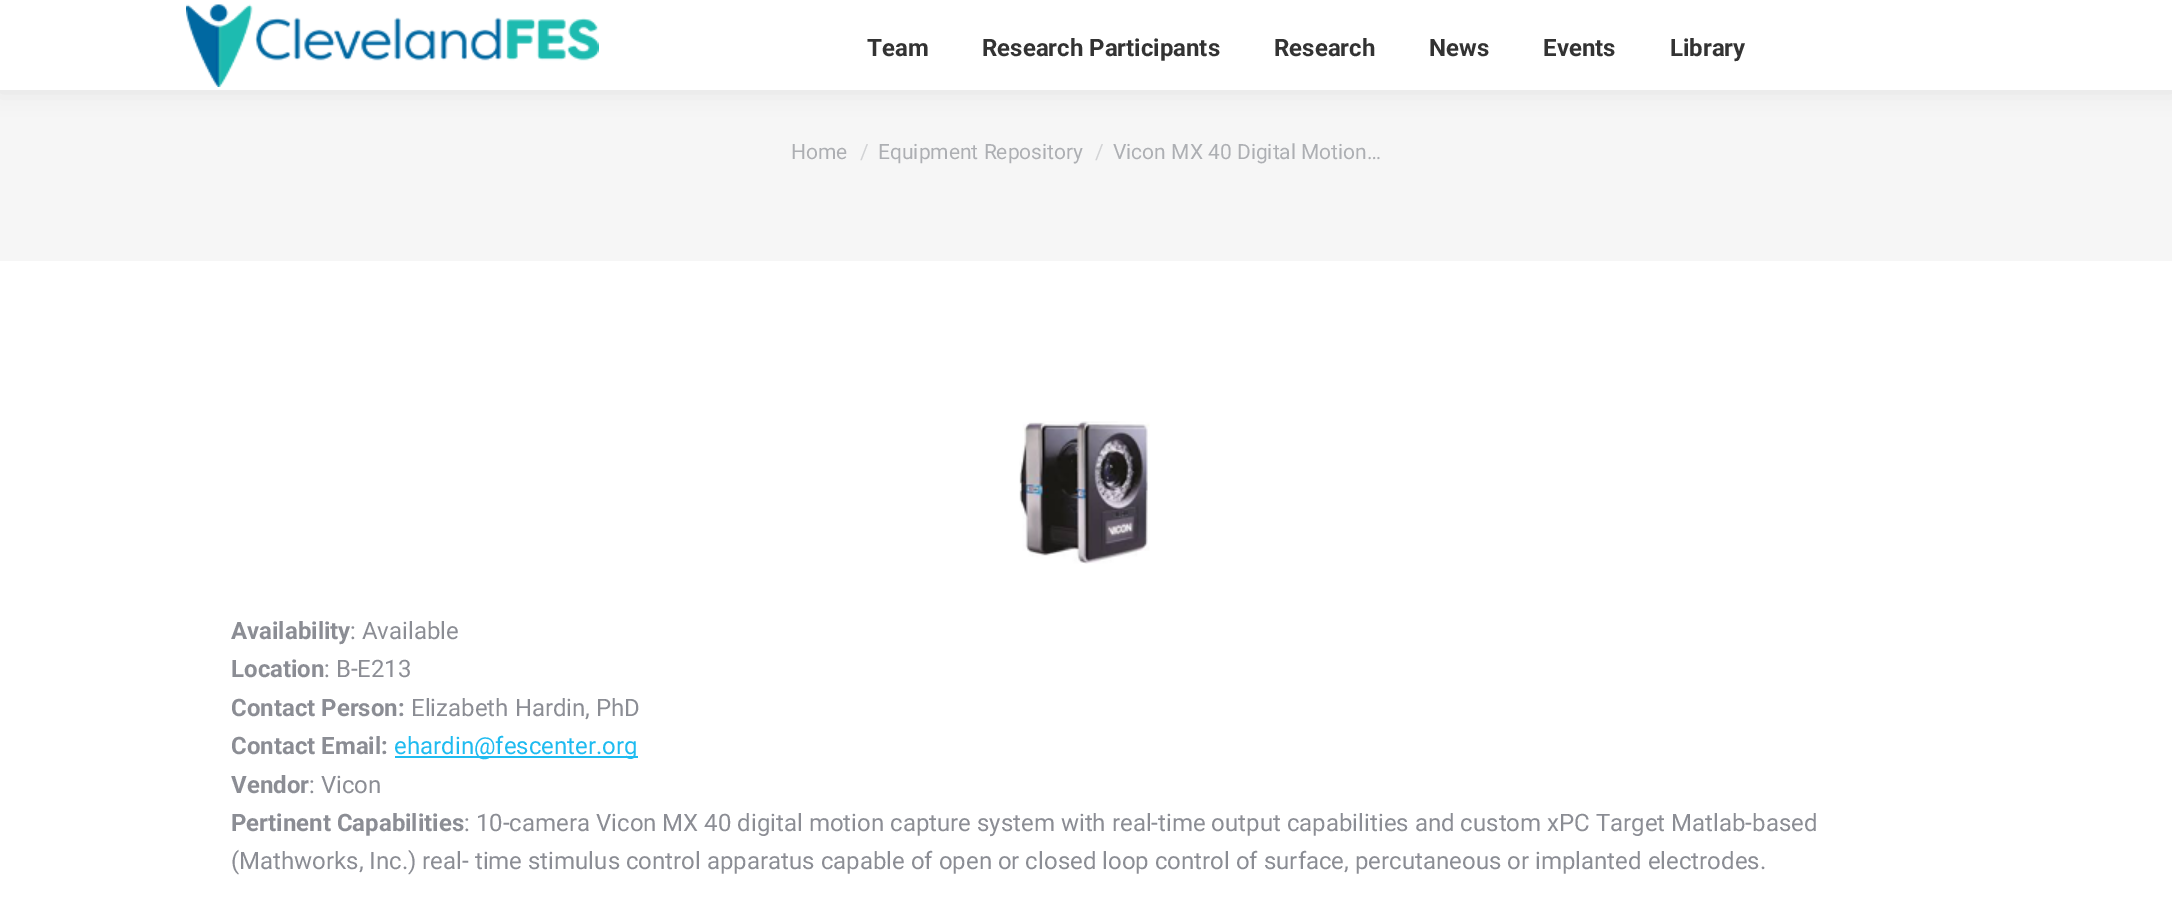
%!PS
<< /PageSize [2172 897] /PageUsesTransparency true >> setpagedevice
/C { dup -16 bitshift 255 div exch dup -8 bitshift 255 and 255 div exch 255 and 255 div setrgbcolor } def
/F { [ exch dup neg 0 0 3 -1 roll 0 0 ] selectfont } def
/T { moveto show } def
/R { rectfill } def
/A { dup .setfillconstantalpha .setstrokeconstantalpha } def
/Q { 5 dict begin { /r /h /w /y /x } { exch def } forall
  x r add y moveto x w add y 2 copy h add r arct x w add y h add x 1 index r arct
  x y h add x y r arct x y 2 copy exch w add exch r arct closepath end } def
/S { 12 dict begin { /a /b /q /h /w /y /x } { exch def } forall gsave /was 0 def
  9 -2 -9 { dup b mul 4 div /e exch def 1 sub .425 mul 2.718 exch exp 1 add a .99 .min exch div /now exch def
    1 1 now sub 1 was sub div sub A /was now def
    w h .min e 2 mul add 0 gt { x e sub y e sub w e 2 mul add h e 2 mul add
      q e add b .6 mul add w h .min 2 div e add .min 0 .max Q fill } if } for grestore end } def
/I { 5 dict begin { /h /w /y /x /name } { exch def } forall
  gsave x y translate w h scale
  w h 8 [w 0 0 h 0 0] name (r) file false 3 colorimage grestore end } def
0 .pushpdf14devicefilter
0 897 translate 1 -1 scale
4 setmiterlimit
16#FFFFFF C
0 0 2172 897 R
16#F6F6F6 C
0 90 2172 171 R
16#000000 C
-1 -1 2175 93 0 11 .07 S
16#FFFFFF C
0 0 2172 90 R
(1.rgb) 186 4 413 83 I
/Roboto-Bold 24 F
16#333333 C
(Team) 867 56 T
(Research Participants) 982 56 T
(Research) 1274 56 T
(News) 1429 56 T
(Events) 1543 56 T
(Library) 1670 56 T
/Roboto-Regular 21 F
16#ADAFB3 C
(Home) 791 159 T
16#D2D3D5 C
(/) 860 159 T
16#ADAFB3 C
(Equipment Repository) 878 159 T
16#D2D3D5 C
(/) 1095 159 T
16#ADAFB3 C
(Vicon MX 40 Digital Motion…) 1113 159 T
(2.rgb) 1019 421 131 143 I
/Roboto-Bold 24 F
16#8B8D94 C
(Availability) 231 639 T
/Roboto-Regular 24 F
(: Available) 350 639 T
/Roboto-Bold 24 F
(Location) 231 677 T
/Roboto-Regular 24 F
(: B-E213) 324 677 T
/Roboto-Bold 24 F
(Contact Person:) 231 716 T
/Roboto-Regular 24 F
(Elizabeth Hardin, PhD) 411 716 T
/Roboto-Bold 24 F
(Contact Email:) 231 754 T
16#1EBBF0 C
395 756 243 2 R
/Roboto-Regular 24 F
(ehardin@fescenter.org) 394 754 T
/Roboto-Bold 24 F
16#8B8D94 C
(Vendor) 231 793 T
/Roboto-Regular 24 F
(: Vicon) 309 793 T
/Roboto-Bold 24 F
(Pertinent Capabilities) 231 831 T
/Roboto-Regular 24 F
(: 10-camera Vicon MX 40 digital motion capture system with real-time output capabilities and custom xPC Target Matlab-based) 464 831 T
(\(Mathworks, Inc.\) real- time stimulus control apparatus capable of open or closed loop control of surface, percutaneous or implanted electrodes.) 231 869 T
.poppdf14devicefilter showpage
